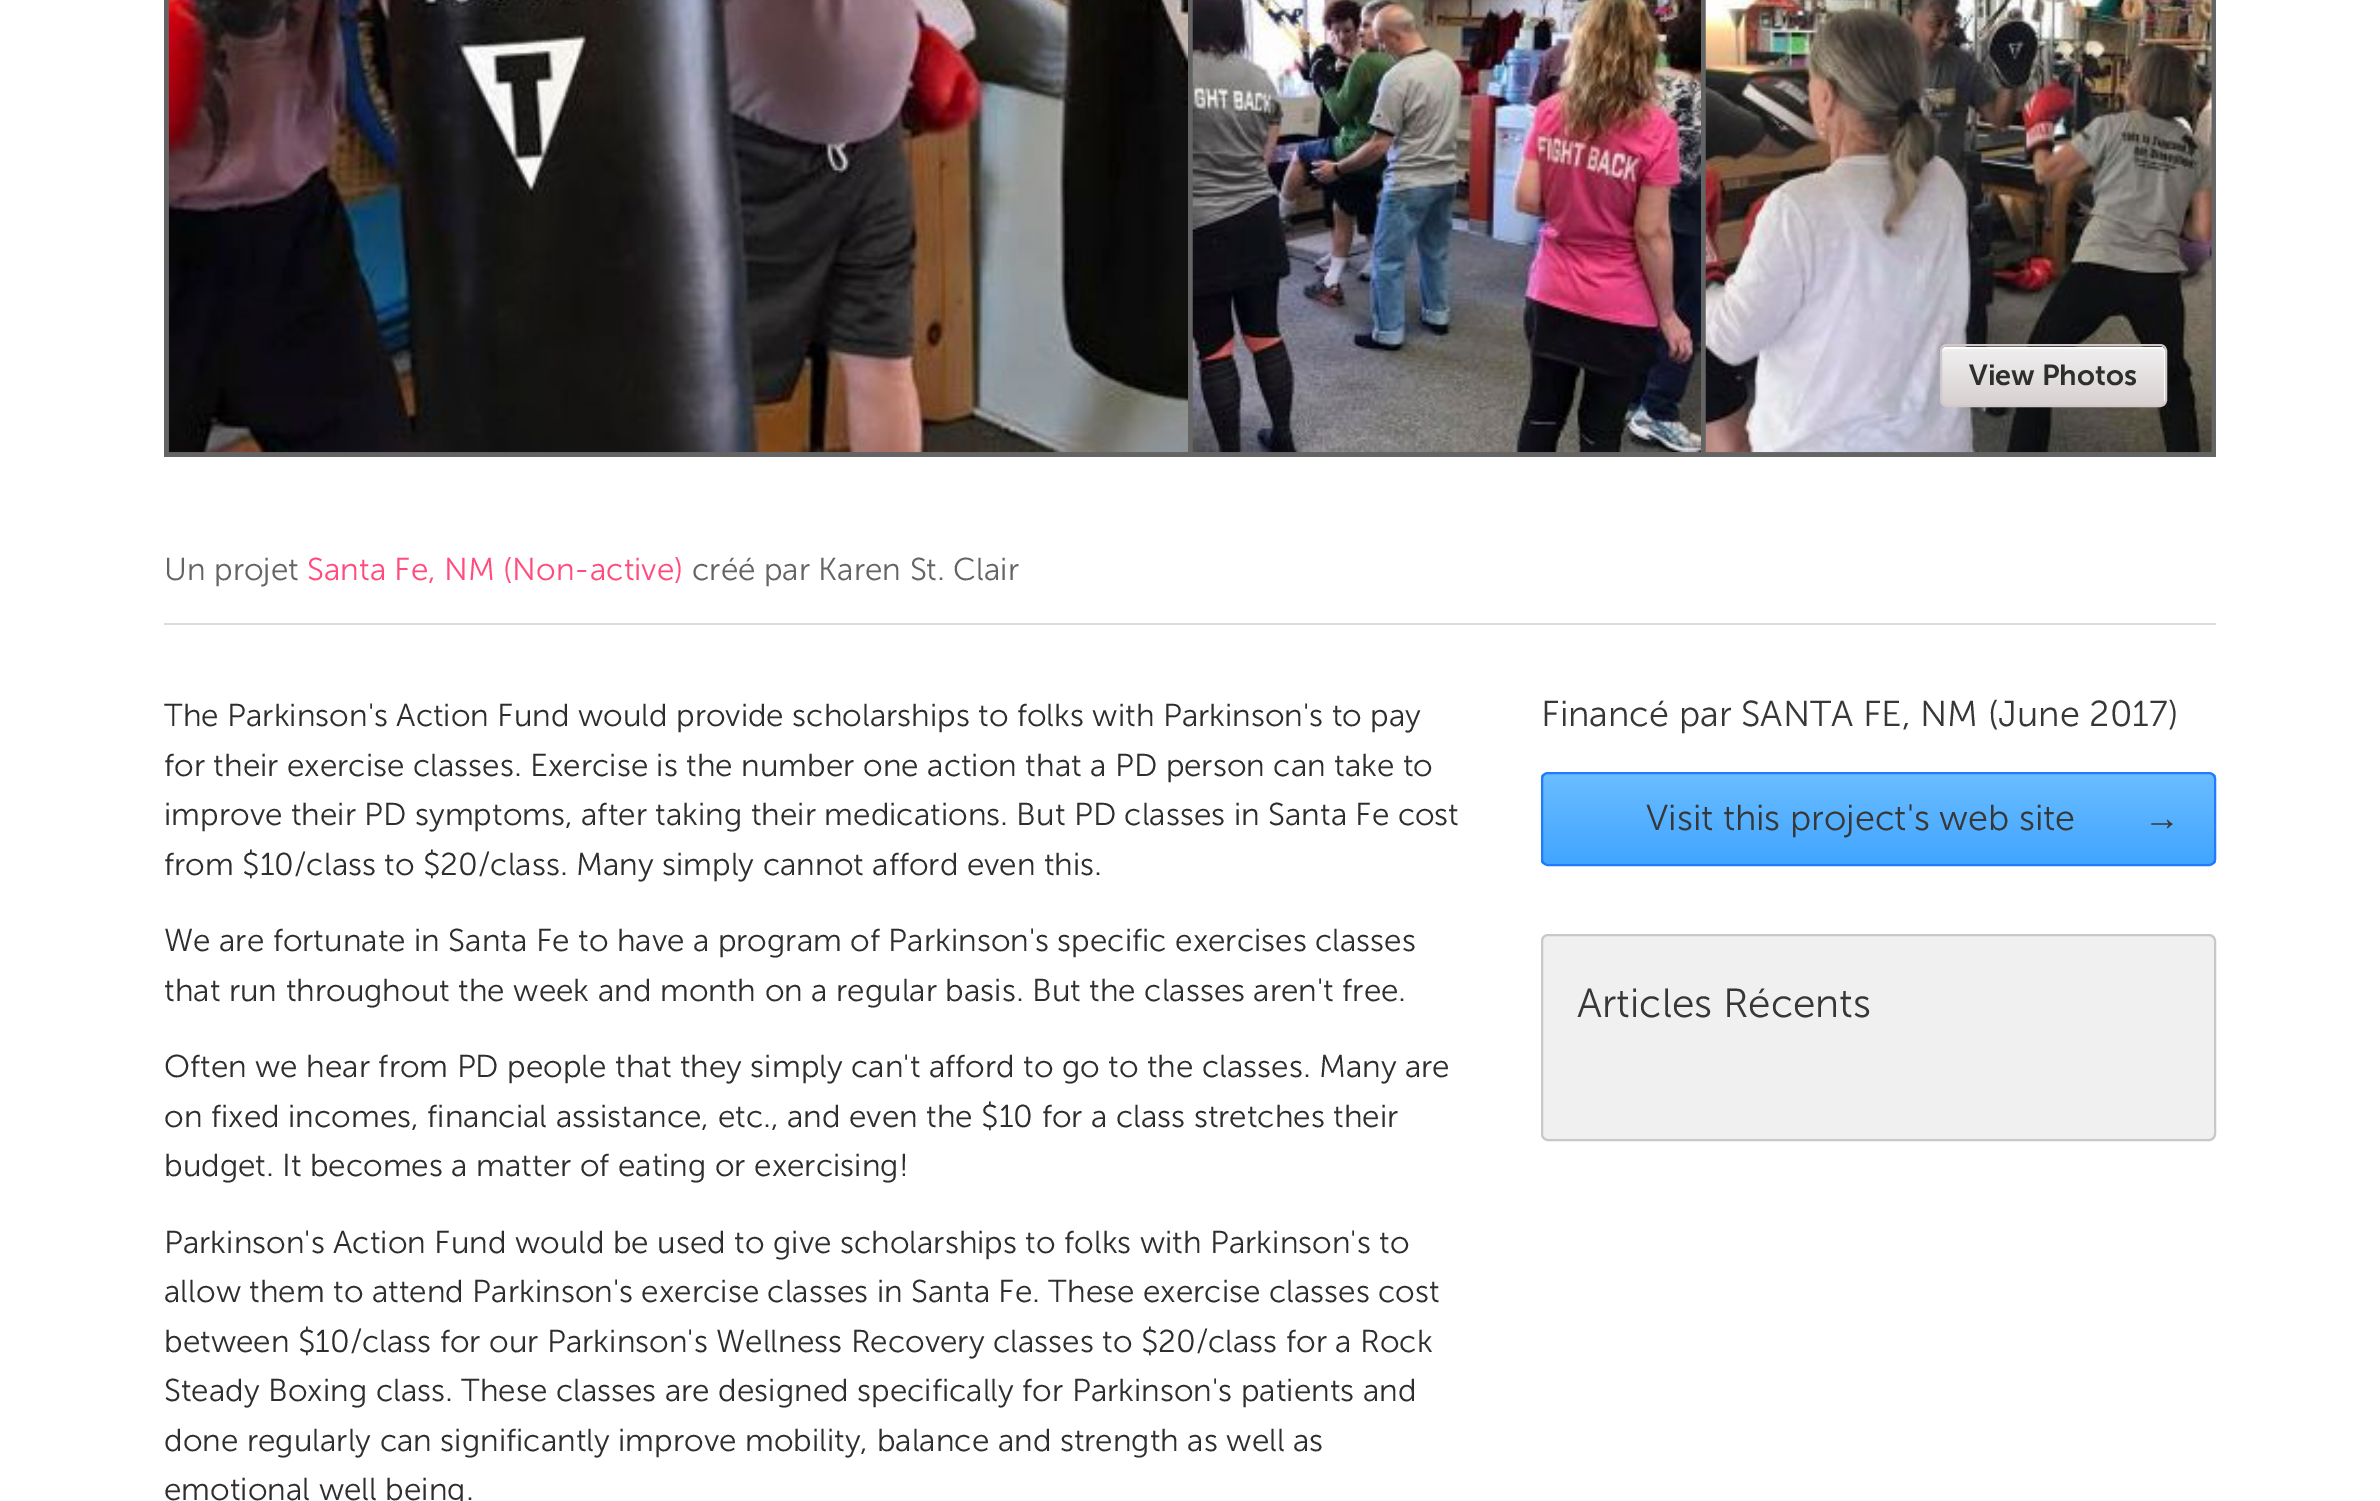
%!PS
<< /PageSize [2380 1501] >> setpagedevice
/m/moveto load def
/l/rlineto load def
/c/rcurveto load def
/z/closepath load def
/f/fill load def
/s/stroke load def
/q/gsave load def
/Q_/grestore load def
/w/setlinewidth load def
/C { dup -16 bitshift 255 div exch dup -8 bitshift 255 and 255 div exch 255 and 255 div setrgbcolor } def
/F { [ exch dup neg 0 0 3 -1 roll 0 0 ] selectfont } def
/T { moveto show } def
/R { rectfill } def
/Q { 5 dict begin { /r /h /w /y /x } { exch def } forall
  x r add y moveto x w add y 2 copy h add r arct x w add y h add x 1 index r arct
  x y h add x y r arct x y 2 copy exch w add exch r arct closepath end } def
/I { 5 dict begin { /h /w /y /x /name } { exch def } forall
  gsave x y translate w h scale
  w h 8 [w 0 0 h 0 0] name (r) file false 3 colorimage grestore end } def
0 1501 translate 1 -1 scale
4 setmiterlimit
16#FFFFFF C
0 0 2380 1501 R
16#646464 C
164 0 2052 457 R
(1.rgb) 168 0 1020 453 I
(2.rgb) 1192 0 509 453 I
(3.rgb) 1705 0 507 453 I
q 1942 347 223 58 5 Q clip newpath
<< /ShadingType 2 /ColorSpace /DeviceRGB /Coords [2053 347 2053 405] /Extend [true true] /Function << /FunctionType 2 /Domain [0 1] /C0 [.941 .941 .941] /C1 [.847 .816 .816] /N 1 >> >> shfill Q_
16#FFFFFF C
1946 349 m 214 0 l 2 0 4 2 4 4 c 0 50 l 1 -1 1 -2 1 -3 c 0 -48 l 0 -3 -2 -5 -5 -5 c -213 0 l -3 0 -5 2 -5 5 c 0 1 l 0 -2 2 -4 4 -4 c z f
16#D1C8C8 C
2 w
1941 345 225 61 6 Q s
/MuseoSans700-SemiBold 28.75 F
16#2E2E2E C
(View Photos) 1969 385 T
16#DCDCDC C
164 623 2052 2 R
/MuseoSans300-Light 31.5 F
16#646464 C
(Un projet) 164 580 T
16#FF4B7E C
(Santa Fe, NM \(Non-active\)) 307 580 T
16#646464 C
(créé par Karen St. Clair) 692 580 T
16#2E2E2E C
(The Parkinson's Action Fund would provide scholarships to folks with Parkinson's to pay) 164 726 T
(for their exercise classes. Exercise is the number one action that a PD person can take to) 164 776 T
(improve their PD symptoms, after taking their medications. But PD classes in Santa Fe cost) 164 825 T
(from $10/class to $20/class. Many simply cannot afford even this.) 164 875 T
(We are fortunate in Santa Fe to have a program of Parkinson's specific exercises classes) 164 951 T
(that run throughout the week and month on a regular basis. But the classes aren't free.) 164 1001 T
(Often we hear from PD people that they simply can't afford to go to the classes. Many are) 164 1077 T
(on fixed incomes, financial assistance, etc., and even the $10 for a class stretches their) 164 1127 T
(budget. It becomes a matter of eating or exercising!) 164 1176 T
(Parkinson's Action Fund would be used to give scholarships to folks with Parkinson's to) 164 1253 T
(allow them to attend Parkinson's exercise classes in Santa Fe. These exercise classes cost) 164 1302 T
(between $10/class for our Parkinson's Wellness Recovery classes to $20/class for a Rock) 164 1352 T
(Steady Boxing class. These classes are designed specifically for Parkinson's patients and) 164 1401 T
(done regularly can significantly improve mobility, balance and strength as well as) 164 1451 T
(emotional well being.) 164 1500 T
/MuseoSans300-Light 36 F
16#373737 C
(Financé par SANTA FE, NM \(June 2017\)) 1541 726 T
q
1541 772 675 94 7 Q clip newpath
q 1541 774 m 675 0 l 0 90 l -675 0 l z clip newpath
<< /ShadingType 2 /ColorSpace /DeviceRGB /Coords [1879 774 1879 864] /Extend [true true] /Function << /FunctionType 2 /Domain [0 1] /C0 [.416 .741 1] /C1 [.255 .647 1] /N 1 >> >> shfill Q_
Q_
16#227AFF C
1542 773 673 92 6 Q s
16#373737 C
(Visit this project's web site) 1646 830 T
/LiberationSans-Regular 36 F
(→) 2144 830 T
16#F0F0F0 C
1542 935 673 205 6 Q q f Q_
16#C8C8C8 C
s
/MuseoSans300-Light 40.5 F
16#373737 C
(Articles Récents) 1577 1017 T
showpage
